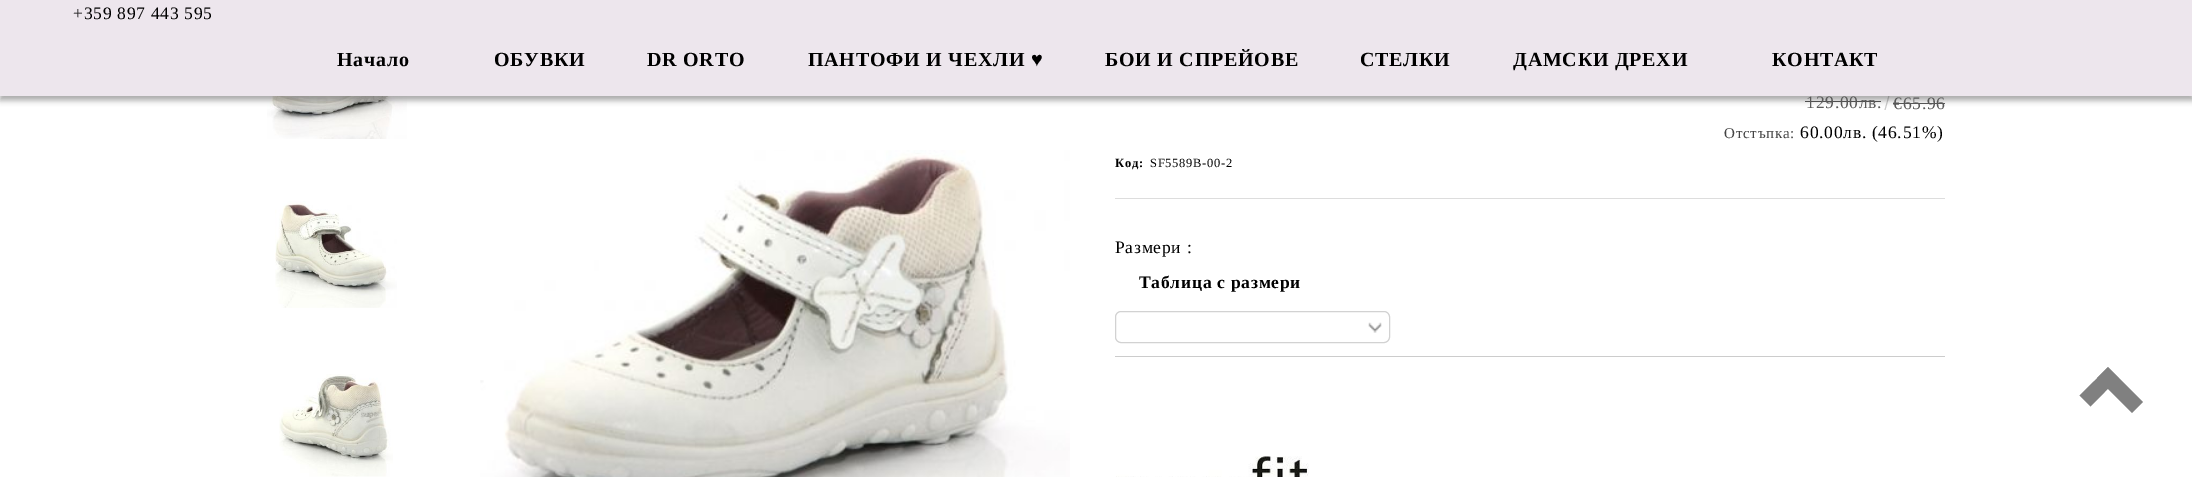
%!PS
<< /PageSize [2192 477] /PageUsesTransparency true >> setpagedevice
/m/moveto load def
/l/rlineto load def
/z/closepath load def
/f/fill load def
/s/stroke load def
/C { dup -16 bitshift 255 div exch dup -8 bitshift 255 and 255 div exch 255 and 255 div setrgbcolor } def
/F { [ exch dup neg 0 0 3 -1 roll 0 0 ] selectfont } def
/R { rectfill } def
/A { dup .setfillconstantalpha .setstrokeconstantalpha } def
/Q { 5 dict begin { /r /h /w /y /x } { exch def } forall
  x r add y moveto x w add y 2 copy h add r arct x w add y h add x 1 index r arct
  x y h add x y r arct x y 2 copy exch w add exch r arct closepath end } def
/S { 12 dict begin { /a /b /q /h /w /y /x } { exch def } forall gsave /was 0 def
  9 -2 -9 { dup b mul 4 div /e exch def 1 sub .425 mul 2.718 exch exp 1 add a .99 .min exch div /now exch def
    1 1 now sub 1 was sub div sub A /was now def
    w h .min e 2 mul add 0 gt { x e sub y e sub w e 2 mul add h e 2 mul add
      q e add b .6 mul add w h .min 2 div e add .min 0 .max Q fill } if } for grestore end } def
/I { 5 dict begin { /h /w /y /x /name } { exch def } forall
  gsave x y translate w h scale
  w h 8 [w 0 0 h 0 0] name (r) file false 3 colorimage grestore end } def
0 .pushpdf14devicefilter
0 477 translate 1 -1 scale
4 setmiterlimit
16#FFFFFF C
0 0 2192 477 R
(1.rgb) 267 96 140 43 I
16#595959 C
1805 101 76 1 R
16#CBCBCB C
1888.5 95.5 m 1 0 l -4 14.5 l -1 0 l z f
16#595959 C
1893 103 52 1 R
16#000000 C
0 4 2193 96 0 3 .25 S
0 5 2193 96 0 2.5 .1 S
16#EDE6ED C
0 0 2192 96 R
/LiberationSerif-Regular 17.5 F
16#000000 C
73 19 m .75 0 (+359 897 443 595) ashow
/LiberationSerif-Bold 20 F
337 66 m .75 0 (Начало) ashow
494 66 m .75 0 (ОБУВКИ) ashow
647 66 m .75 0 (DR ORTO) ashow
808 66 m .75 0 (ПАНТОФИ И ЧЕХЛИ ♥) ashow
1105 66 m .75 0 (БОИ И СПРЕЙОВЕ) ashow
1360 66 m .75 0 (СТЕЛКИ) ashow
1513 66 m .75 0 (ДАМСКИ ДРЕХИ) ashow
1772 66 m .75 0 (КОНТАКТ) ashow
(2.rgb) 275 201 122 107 I
(3.rgb) 279 374 114 103 I
(4.rgb) 480 150 590 327 I
/LiberationSerif-Regular 17.5 F
16#595959 C
1806 108 m .75 0 (129.00лв.) ashow
1893 109 m .75 0 (€65.96) ashow
/LiberationSerif-Regular 15 F
16#444444 C
1724 138 m .75 0 (Отстъпка:) ashow
/LiberationSerif-Regular 17.5 F
16#000000 C
1800 138 m .75 0 (60.00лв. \(46.51%\)) ashow
16#DDDDDD C
1115 198 830 1 R
/LiberationSerif-Bold 12.5 F
16#000000 C
1115 167 m .75 0 (Код:) ashow
/LiberationSerif-Regular 12.5 F
1150 167 m .75 0 (SF5589B-00-2) ashow
/LiberationSerif-Regular 17.5 F
1115 253 m .75 0 (Размери :) ashow
/LiberationSerif-Bold 17.5 F
1139 288 m .75 0 (Таблица с размери) ashow
(5.rgb) 1368 322 14 11 I
16#D2D2D2 C
1115.5 311.5 274 31 5.5 Q s
16#CCCCCC C
1115 356 830 1 R
(6.rgb) 1116 456 193 21 I
16#808080 C
2090.5 406.5 m -11 -11 l 28.5 -28 l 10.5 10.5 l z f
2132 413 m -35 -35 l 11 -11 l 35 35 l z f
.poppdf14devicefilter showpage
